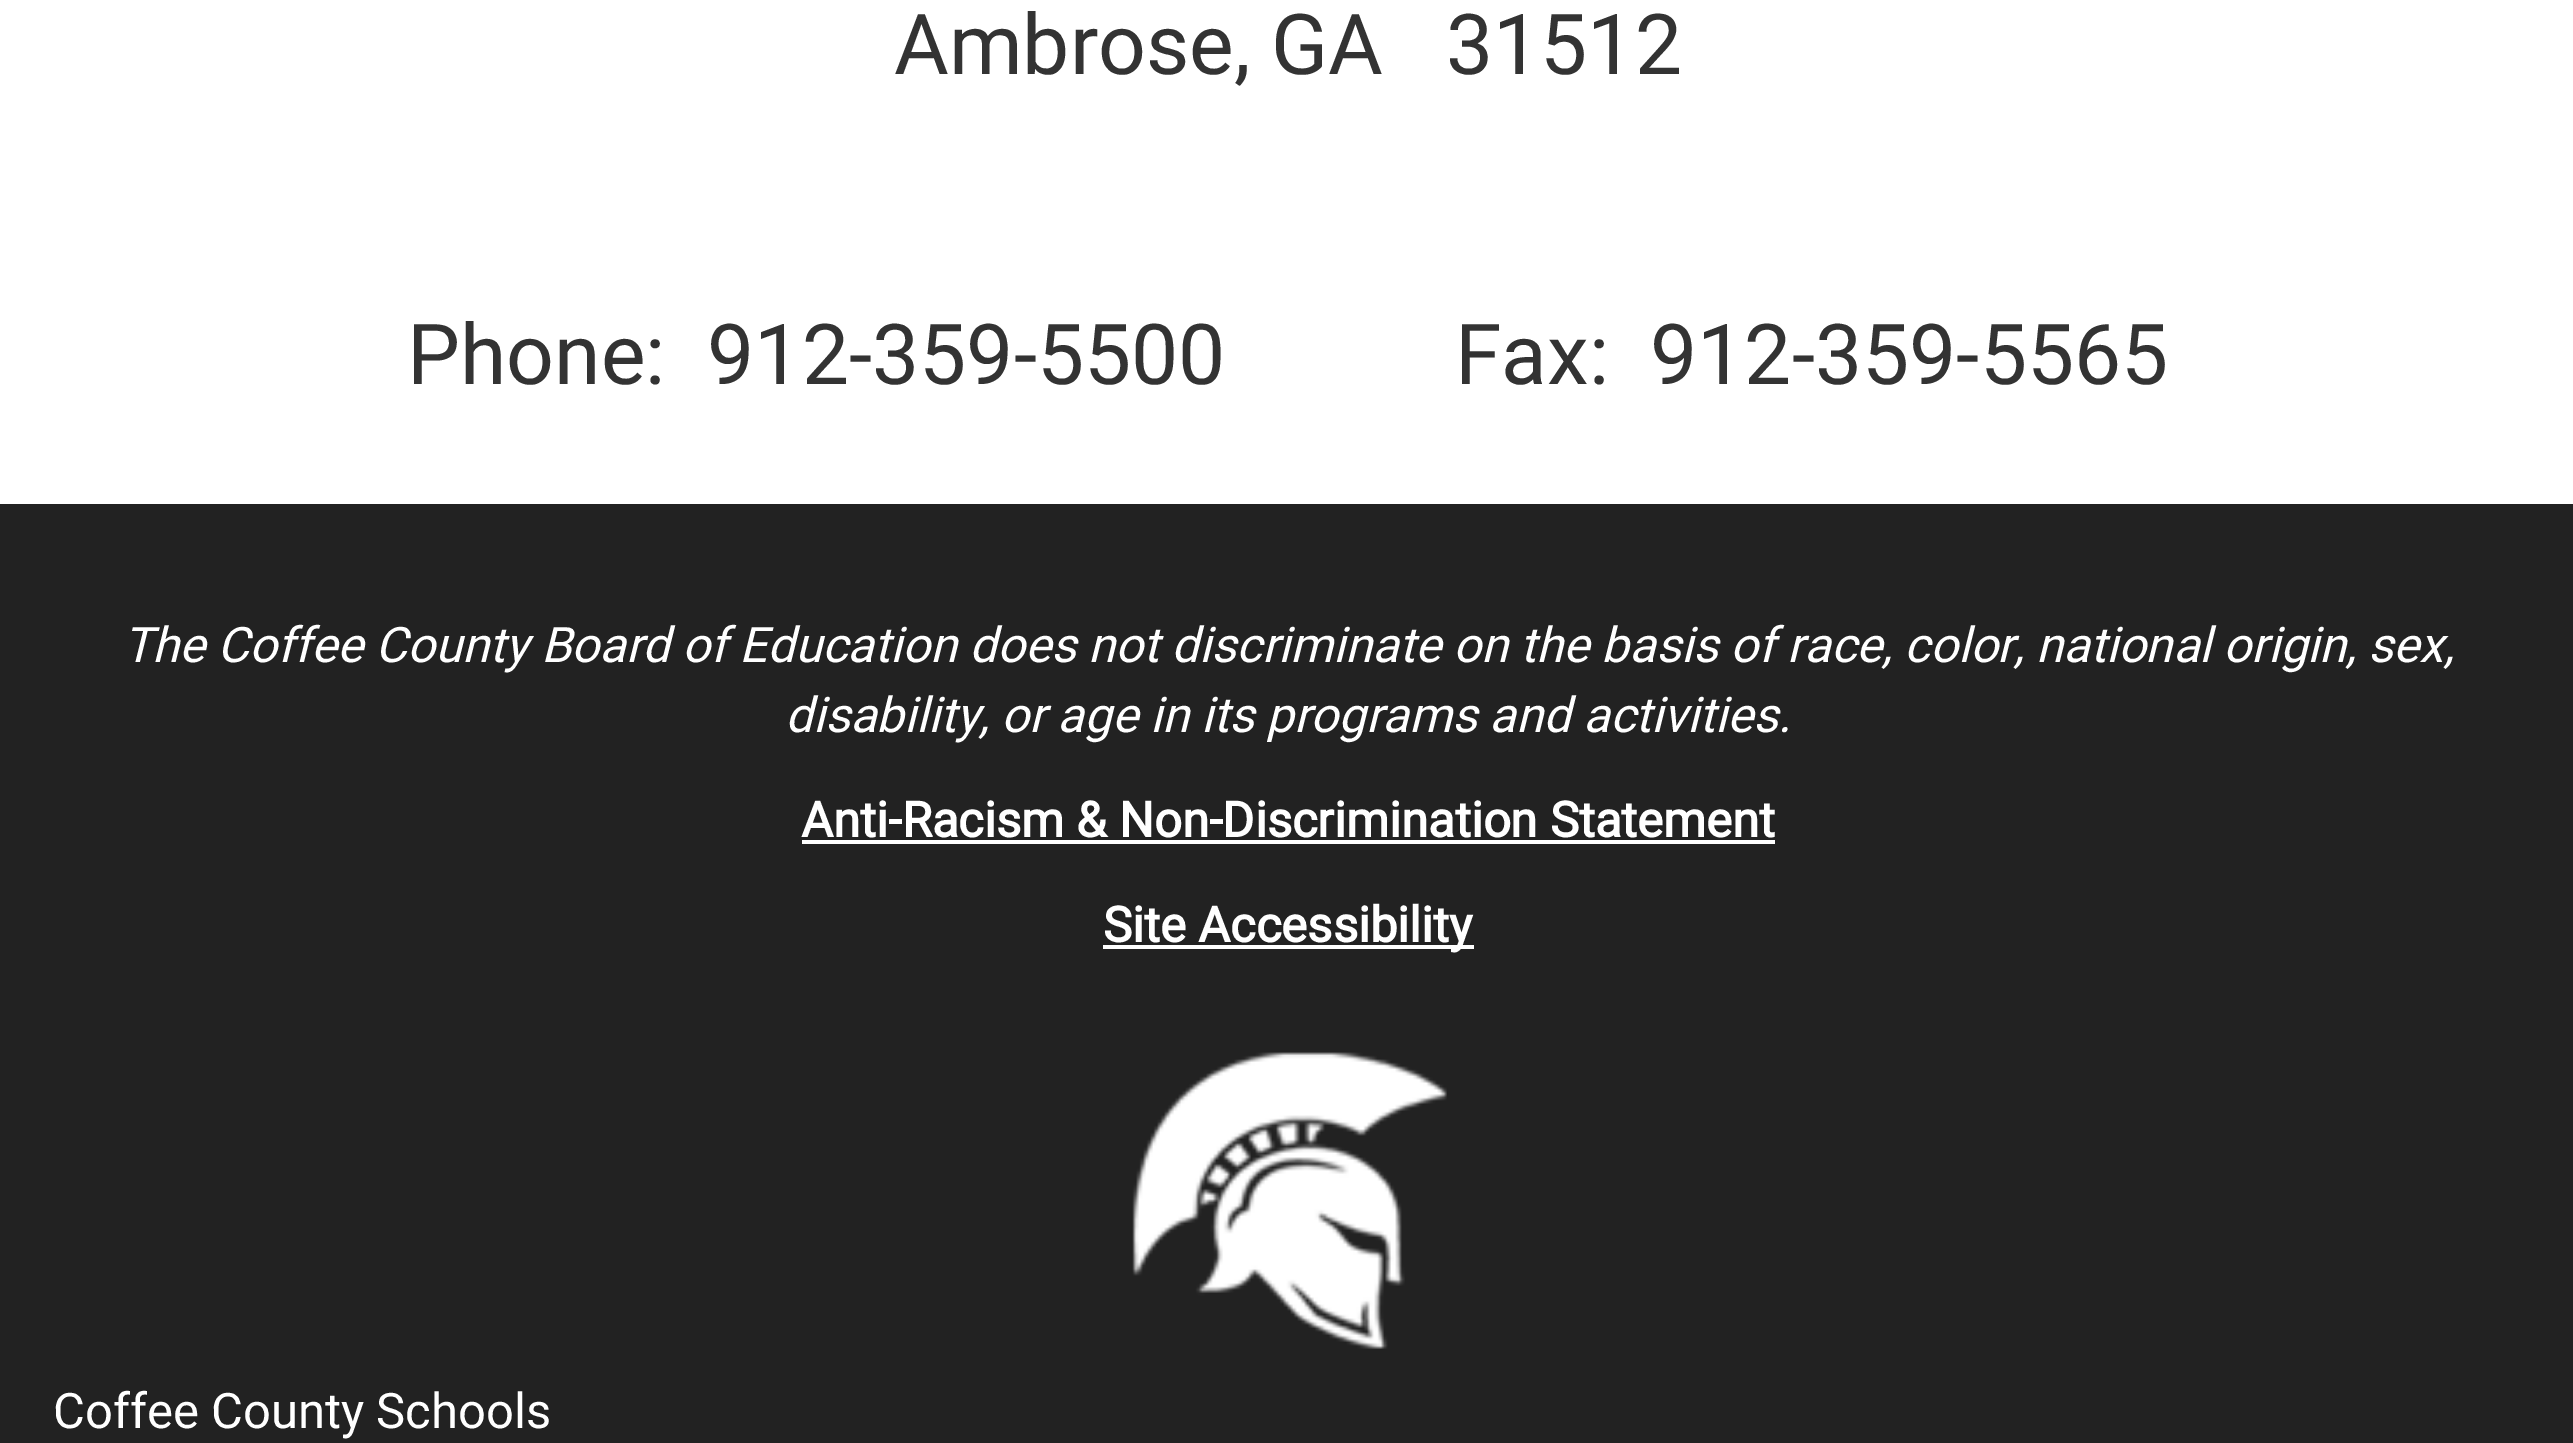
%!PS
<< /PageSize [2573 1443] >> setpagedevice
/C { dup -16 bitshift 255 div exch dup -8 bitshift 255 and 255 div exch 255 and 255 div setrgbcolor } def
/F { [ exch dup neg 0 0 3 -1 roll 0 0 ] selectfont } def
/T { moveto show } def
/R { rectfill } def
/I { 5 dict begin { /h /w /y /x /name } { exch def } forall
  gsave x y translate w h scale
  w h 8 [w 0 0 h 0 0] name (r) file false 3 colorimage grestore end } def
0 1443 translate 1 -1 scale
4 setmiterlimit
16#FFFFFF C
0 0 2573 1443 R
/Roboto-Regular 84 F
16#333333 C
(Ambrose, GA   31512) 894 74 T
(Phone:  912-359-5500           Fax:) 407 384 T
(912-359-5565) 1650 384 T
16#222222 C
0 504 2573 939 R
/Roboto-Italic 49 F
16#FFFFFF C
(The Coffee County Board of Education does not discriminate on the basis of race, color, national origin, sex,) 123 662 T
(disability, or age in its programs and activities.) 785 732 T
/Roboto-Bold 49 F
(Anti-Racism & Non-Discrimination Statement) 801 837 T
802 840 973 4 R
1103 945 371 4 R
(Site Accessibility) 1103 942 T
(1.rgb) 1132 1052 315 297 I
/Roboto-Regular 49 F
(Coffee County Schools) 53 1428 T
showpage
